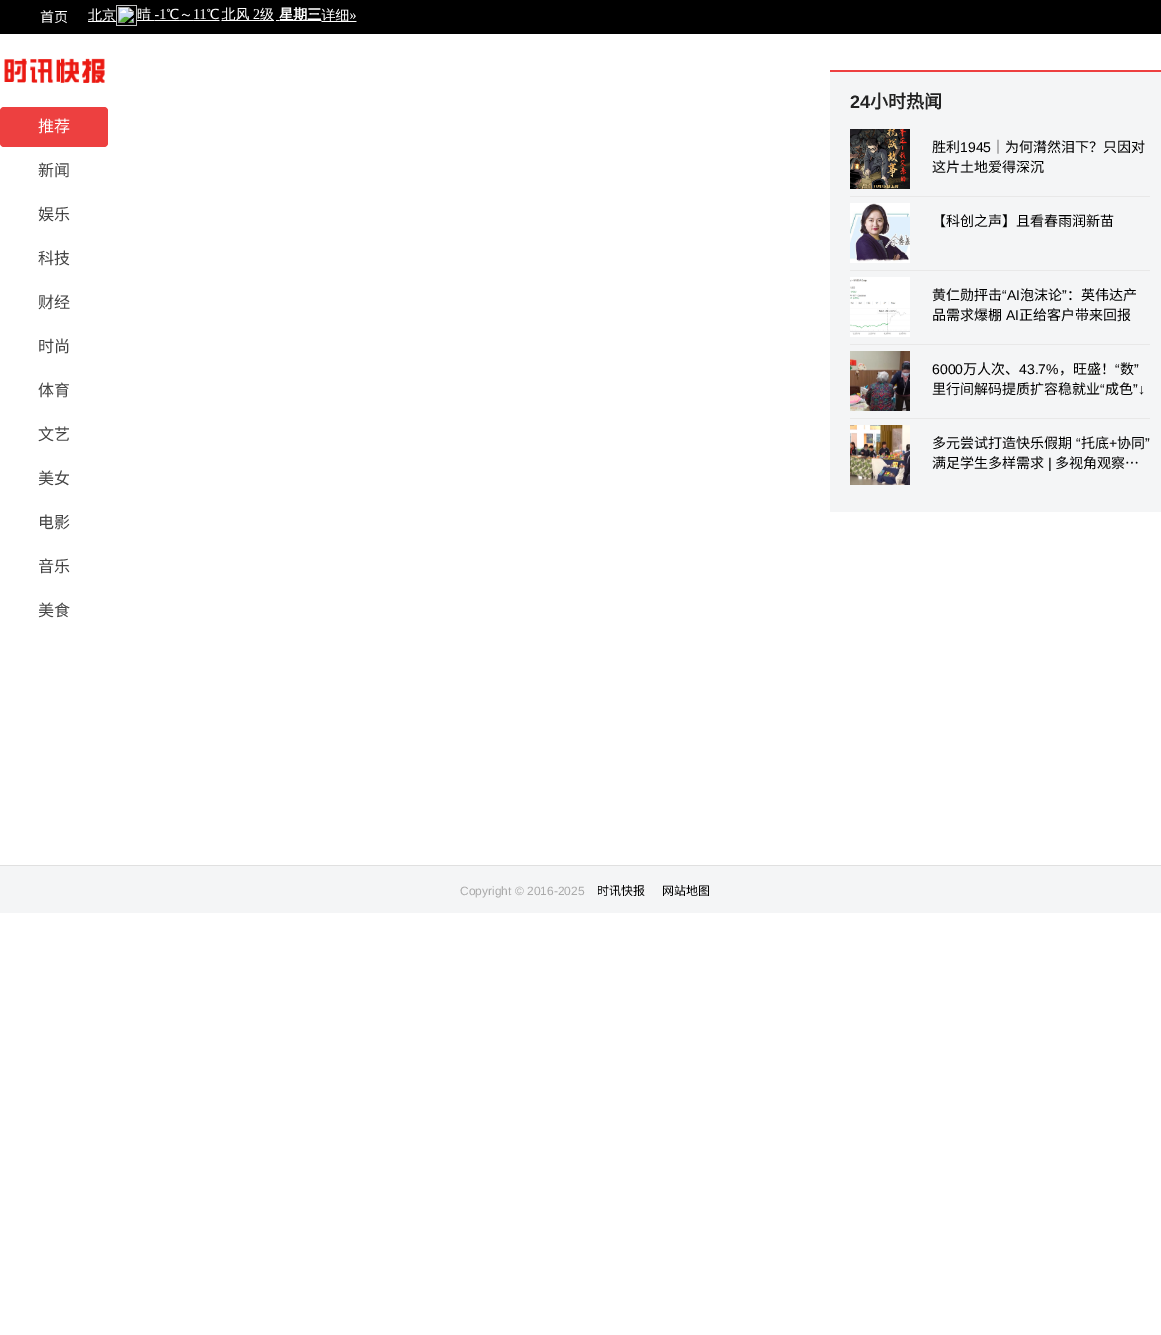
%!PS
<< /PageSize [1161 1335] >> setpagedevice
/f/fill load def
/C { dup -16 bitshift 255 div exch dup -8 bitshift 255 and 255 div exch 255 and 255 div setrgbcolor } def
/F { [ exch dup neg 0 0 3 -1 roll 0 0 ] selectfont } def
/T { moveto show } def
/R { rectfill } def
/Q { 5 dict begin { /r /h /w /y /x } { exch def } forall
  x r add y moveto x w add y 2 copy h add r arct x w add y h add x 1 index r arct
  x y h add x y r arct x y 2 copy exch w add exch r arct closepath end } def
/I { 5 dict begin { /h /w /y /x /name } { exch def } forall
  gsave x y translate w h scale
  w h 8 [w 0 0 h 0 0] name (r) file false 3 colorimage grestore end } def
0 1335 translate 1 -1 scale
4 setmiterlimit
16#FFFFFF C
0 0 1161 1335 R
16#000000 C
0 0 1161 34 R
/NotoSansCJKSC-Regular 14 F
16#FFFFFF C
(首页) 40 22 T
(1.rgb) 88 5 269 21 I
(2.rgb) 4 58 101 25 I
16#ED4040 C
0 107 108 40 4 Q f
/NotoSansCJKSC-Regular 16 F
16#FFFFFF C
(推荐) 38 132 T
16#444444 C
(新闻) 38 176 T
(娱乐) 38 220 T
(科技) 38 264 T
(财经) 38 308 T
(时尚) 38 352 T
(体育) 38 396 T
(文艺) 38 440 T
(美女) 38 484 T
(电影) 38 528 T
(音乐) 38 572 T
(美食) 38 616 T
16#F4F5F6 C
830 72 331 440 R
16#ED4040 C
830 70 331 2 R
/LiberationSans-Bold 18 F
16#222222 C
(24) 850 108 T
/NotoSansCJKSC-Bold 18 F
(小时热闻) 870 108 T
16#E8E8E8 C
850 196 300 1 R
(3.rgb) 850 129 60 60 I
/NotoSansCJKSC-Regular 14 F
16#000000 C
(胜利) 932 152 T
/LiberationSans-Regular 14 F
(1945) 960 152 T
/NotoSansCJKSC-Regular 14 F
(｜为何潸然泪下？只因对) 991 152 T
(这片土地爱得深沉) 932 172 T
16#E8E8E8 C
850 270 300 1 R
(4.rgb) 850 203 60 60 I
16#000000 C
(【科创之声】且看春雨润新苗) 932 226 T
16#E8E8E8 C
850 344 300 1 R
(5.rgb) 850 277 60 60 I
16#000000 C
(黄仁勋抨击) 932 300 T
/LiberationSans-Regular 14 F
(“AI) 1002 300 T
/NotoSansCJKSC-Regular 14 F
(泡沫论) 1020 300 T
/LiberationSans-Regular 14 F
(”) 1062 300 T
/NotoSansCJKSC-Regular 14 F
(：英伟达产) 1067 300 T
(品需求爆棚) 932 320 T
/LiberationSans-Regular 14 F
(AI) 1006 320 T
/NotoSansCJKSC-Regular 14 F
(正给客户带来回报) 1019 320 T
16#E8E8E8 C
850 418 300 1 R
(6.rgb) 850 351 60 60 I
/LiberationSans-Regular 14 F
16#000000 C
(6000) 932 374 T
/NotoSansCJKSC-Regular 14 F
(万人次、) 963 374 T
/LiberationSans-Regular 14 F
(43.7%) 1019 374 T
/NotoSansCJKSC-Regular 14 F
(，旺盛！) 1059 374 T
/LiberationSans-Regular 14 F
(“) 1115 374 T
/NotoSansCJKSC-Regular 14 F
(数) 1120 374 T
/LiberationSans-Regular 14 F
(”) 1134 374 T
/NotoSansCJKSC-Regular 14 F
(里行间解码提质扩容稳就业) 932 394 T
/LiberationSans-Regular 14 F
(“) 1100 394 T
/NotoSansCJKSC-Regular 14 F
(成色) 1105 394 T
/LiberationSans-Regular 14 F
(”↓) 1133 394 T
(7.rgb) 850 425 60 60 I
/NotoSansCJKSC-Regular 14 F
(多元尝试打造快乐假期) 932 448 T
/LiberationSans-Regular 14 F
(“) 1076 448 T
/NotoSansCJKSC-Regular 14 F
(托底) 1081 448 T
/LiberationSans-Regular 14 F
(+) 1109 448 T
/NotoSansCJKSC-Regular 14 F
(协同) 1117 448 T
/LiberationSans-Regular 14 F
(”) 1145 448 T
/NotoSansCJKSC-Regular 14 F
(满足学生多样需求) 932 468 T
/LiberationSans-Regular 14 F
(|) 1048 468 T
/NotoSansCJKSC-Regular 14 F
(多视角观察…) 1055 468 T
16#F4F5F6 C
0 866 1161 47 R
16#E0E0E0 C
0 865 1161 1 R
/LiberationSans-Regular 12 F
16#AAAAAA C
(Copyright © 2016-2025) 460 895 T
/NotoSansCJKSC-Regular 12 F
16#000000 C
(时讯快报) 597 895 T
(网站地图) 662 895 T
showpage
